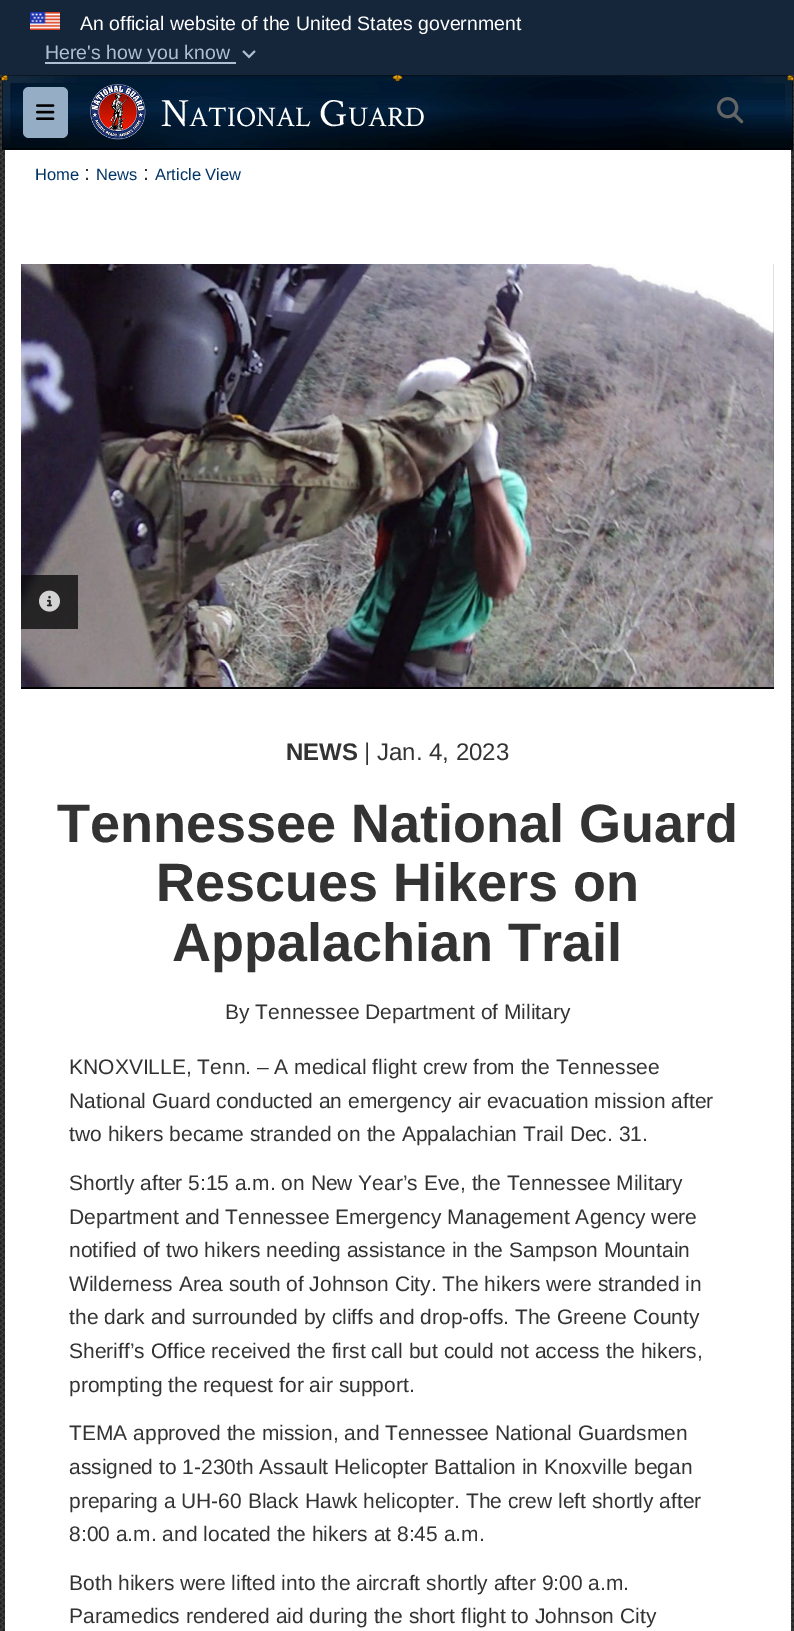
%!PS
<< /PageSize [794 1631] /PageUsesTransparency true >> setpagedevice
/f/fill load def
/C { dup -16 bitshift 255 div exch dup -8 bitshift 255 and 255 div exch 255 and 255 div setrgbcolor } def
/F { [ exch dup neg 0 0 3 -1 roll 0 0 ] selectfont } def
/T { moveto show } def
/R { rectfill } def
/A { dup .setfillconstantalpha .setstrokeconstantalpha } def
/Q { 5 dict begin { /r /h /w /y /x } { exch def } forall
  x r add y moveto x w add y 2 copy h add r arct x w add y h add x 1 index r arct
  x y h add x y r arct x y 2 copy exch w add exch r arct closepath end } def
/I { 5 dict begin { /h /w /y /x /name } { exch def } forall
  gsave x y translate w h scale
  w h 8 [w 0 0 h 0 0] name (r) file false 3 colorimage grestore end } def
0 .pushpdf14devicefilter
0 1631 translate 1 -1 scale
4 setmiterlimit
16#FFFFFF C
0 0 794 1631 R
(1.rgb) 0 75 794 1556 I
16#15263B C
0 0 794 75 R
(2.rgb) 30 12 30 18 I
/LiberationSans-Regular 19.5 F
16#FFFFFF C
(An official website of the United States government) 80 30 T
16#AEBFD4 C
45 62 191 2 R
(Here's how you know) 45 59 T
(3.rgb) 242 50 14 9 I
(4.rgb) 0 75 794 75 I
16#95ADC5 C
23 87 45 51 6 Q f
(5.rgb) 36 104 19 16 I
(6.rgb) 90 84 56 56 I
/CrimsonText-Regular 40 F
16#FFFFFF C
(N) 161 126 T
/CrimsonText-Regular 28.5 F
(ATIONAL) 189 126 T
/CrimsonText-Regular 40 F
(G) 319 126 T
/CrimsonText-Regular 28.5 F
(UARD) 348 126 T
(7.rgb) 717 97 27 27 I
5 150 786 1481 R
/LiberationSans-Regular 16.5 F
16#003366 C
(Home) 35 180 T
/LiberationSans-Regular 21 F
16#333333 C
(:) 84 180 T
/LiberationSans-Regular 16.5 F
16#003366 C
(News) 96 180 T
/LiberationSans-Regular 21 F
16#333333 C
(:) 143 180 T
/LiberationSans-Regular 16.5 F
16#003366 C
(Article View) 155 180 T
16#000000 C
21 264 753 425 R
(9.rgb) 773 264 1 423 I
(8.rgb) 21 264 753 423 I
0.8 A
16#0C0C0D C
21 575 57 54 R
1 A
(10.rgb) 39 590 21 22 I
/LiberationSans-Bold 24 F
16#333333 C
(NEWS) 286 760 T
/LiberationSans-Regular 24 F
(| Jan. 4, 2023) 364 760 T
/LiberationSans-Bold 54 F
(Tennessee National Guard) 57 842 T
(Rescues Hikers on) 156 901 T
(Appalachian Trail) 172 961 T
/LiberationSans-Regular 21 F
(By Tennessee Department of Military) 225 1019 T
(KNOXVILLE, Tenn. – A medical flight crew from the Tennessee) 69 1074 T
(National Guard conducted an emergency air evacuation mission after) 69 1108 T
(two hikers became stranded on the Appalachian Trail Dec. 31.) 69 1141 T
(Shortly after 5:15 a.m. on New Year’s Eve, the Tennessee Military) 69 1190 T
(Department and Tennessee Emergency Management Agency were) 69 1224 T
(notified of two hikers needing assistance in the Sampson Mountain) 69 1257 T
(Wilderness Area south of Johnson City. The hikers were stranded in) 69 1291 T
(the dark and surrounded by cliffs and drop-offs. The Greene County) 69 1324 T
(Sheriff’s Office received the first call but could not access the hikers,) 69 1358 T
(prompting the request for air support.) 69 1392 T
(TEMA approved the mission, and Tennessee National Guardsmen) 69 1440 T
(assigned to 1-230th Assault Helicopter Battalion in Knoxville began) 69 1474 T
(preparing a UH-60 Black Hawk helicopter. The crew left shortly after) 69 1508 T
(8:00 a.m. and located the hikers at 8:45 a.m.) 69 1541 T
(Both hikers were lifted into the aircraft shortly after 9:00 a.m.) 69 1590 T
(Paramedics rendered aid during the short flight to Johnson City) 69 1623 T
.poppdf14devicefilter showpage
